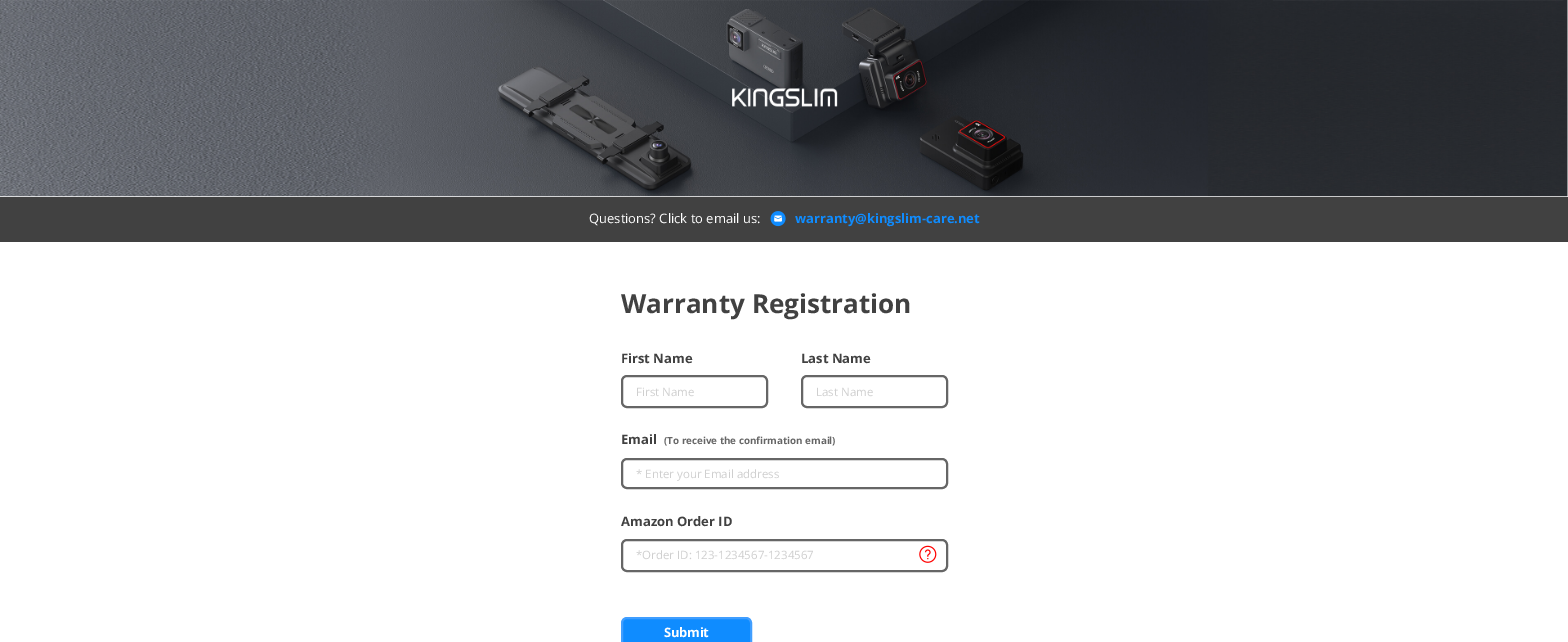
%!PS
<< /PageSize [1568 642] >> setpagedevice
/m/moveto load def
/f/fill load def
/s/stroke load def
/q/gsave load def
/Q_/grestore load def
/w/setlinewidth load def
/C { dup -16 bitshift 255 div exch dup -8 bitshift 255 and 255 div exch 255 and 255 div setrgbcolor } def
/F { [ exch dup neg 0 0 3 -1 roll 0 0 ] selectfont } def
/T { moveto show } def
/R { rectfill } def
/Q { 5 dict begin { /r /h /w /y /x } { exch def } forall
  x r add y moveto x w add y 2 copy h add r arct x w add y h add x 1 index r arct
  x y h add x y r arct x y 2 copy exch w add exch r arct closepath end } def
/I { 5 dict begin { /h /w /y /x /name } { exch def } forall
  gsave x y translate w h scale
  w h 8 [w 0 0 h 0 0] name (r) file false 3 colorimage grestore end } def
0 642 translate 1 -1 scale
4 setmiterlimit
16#FFFFFF C
0 0 1568 642 R
(1.rgb) 0 0 1568 197 I
(2.rgb) 732 88 106 19 I
16#414141 C
0 197 1568 45 R
/OpenSans-Regular 13 F
16#FFFFFF C
(Questions? Click to email us:) 589 223 T
(3.rgb) 770 211 16 16 I
/OpenSans-Bold 13 F
16#0F8CFF C
(warranty@kingslim-care.net) 795 223 T
/OpenSans-Bold 26.1 F
16#414141 C
(Warranty Registration) 621 313 T
/OpenSans-Bold 13 F
(First Name) 621 363 T
16#666666 C
2 w
622 376 145 31 5 Q s
/OpenSans-Regular 11.5 F
16#CFCFCF C
(First Name) 636 396 T
/OpenSans-Bold 13 F
16#414141 C
(Last Name) 801 363 T
16#666666 C
802 376 145 31 5 Q s
/OpenSans-Regular 11.5 F
16#CFCFCF C
(Last Name) 816 396 T
/OpenSans-Bold 13 F
16#414141 C
(Email) 621 444 T
/OpenSans-Bold 9.8 F
16#666666 C
(\(To receive the confirmation email\)) 664 444 T
622 459 325 29 5 Q s
/OpenSans-Regular 11.5 F
16#CFCFCF C
(* Enter your Email address) 636 478 T
/OpenSans-Bold 13 F
16#414141 C
(Amazon Order ID) 621 526 T
16#666666 C
622 540 325 31 5 Q s
/OpenSans-Regular 11.5 F
16#CFCFCF C
(*Order ID: 123-1234567-1234567) 636 559 T
(4.rgb) 919 545 18 18 I
16#0F8CFF C
622 618 129 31 5 Q q f Q_
16#409EFF C
s
/OpenSans-Bold 13 F
16#FFFFFF C
664 637 m -.25 0 (Submit) ashow
showpage
